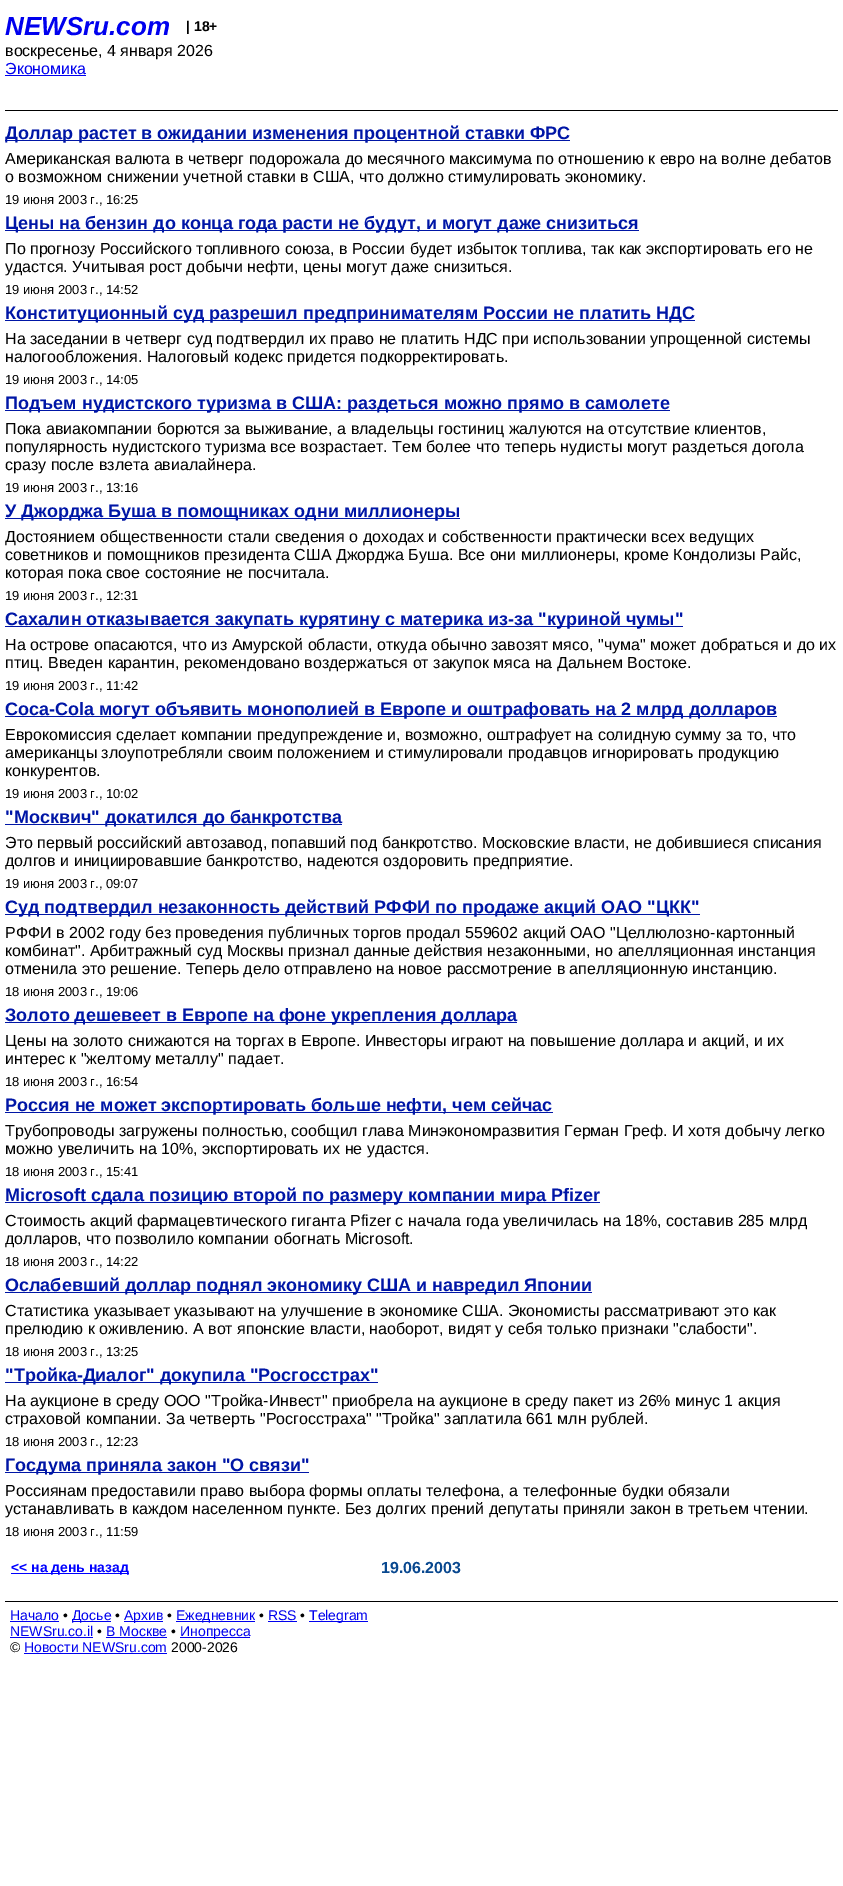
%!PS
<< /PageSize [843 1886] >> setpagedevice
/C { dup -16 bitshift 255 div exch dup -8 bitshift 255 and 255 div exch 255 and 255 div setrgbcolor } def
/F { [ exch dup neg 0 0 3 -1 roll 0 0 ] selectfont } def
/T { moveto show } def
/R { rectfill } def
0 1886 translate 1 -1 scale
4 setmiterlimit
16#FFFFFF C
0 0 843 1886 R
16#000000 C
5 110 833 1 R
/LiberationSans-BoldItalic 26 F
16#0000EE C
(NEWSru.com) 5 35 T
/LiberationSans-Bold 14 F
16#000000 C
(| 18+) 186 31 T
/LiberationSans-Regular 16 F
(воскресенье, 4 января 2026) 5 56 T
16#0000EE C
(Экономика) 5 74 T
5 75 81 1 R
16#0016A6 C
5 140 565 1 R
/LiberationSans-Bold 18 F
(Доллар растет в ожидании изменения процентной ставки ФРС) 5 139 T
/LiberationSans-Regular 16 F
16#000000 C
(Американская валюта в четверг подорожала до месячного максимума по отношению к евро на волне дебатов) 5 164 T
(о возможном снижении учетной ставки в США, что должно стимулировать экономику.) 5 182 T
/LiberationSans-Regular 13 F
(19 июня 2003 г., 16:25) 5 204 T
16#0016A6 C
5 230 634 1 R
/LiberationSans-Bold 18 F
(Цены на бензин до конца года расти не будут, и могут даже снизиться) 5 229 T
/LiberationSans-Regular 16 F
16#000000 C
(По прогнозу Российского топливного союза, в России будет избыток топлива, так как экспортировать его не) 5 254 T
(удастся. Учитывая рост добычи нефти, цены могут даже снизиться.) 5 272 T
/LiberationSans-Regular 13 F
(19 июня 2003 г., 14:52) 5 294 T
16#0016A6 C
5 320 690 1 R
/LiberationSans-Bold 18 F
(Конституционный суд разрешил предпринимателям России не платить НДС) 5 319 T
/LiberationSans-Regular 16 F
16#000000 C
(На заседании в четверг суд подтвердил их право не платить НДС при использовании упрощенной системы) 5 344 T
(налогообложения. Налоговый кодекс придется подкорректировать.) 5 362 T
/LiberationSans-Regular 13 F
(19 июня 2003 г., 14:05) 5 384 T
16#0016A6 C
5 410 665 1 R
/LiberationSans-Bold 18 F
(Подъем нудистского туризма в США: раздеться можно прямо в самолете) 5 409 T
/LiberationSans-Regular 16 F
16#000000 C
(Пока авиакомпании борются за выживание, а владельцы гостиниц жалуются на отсутствие клиентов,) 5 434 T
(популярность нудистского туризма все возрастает. Тем более что теперь нудисты могут раздеться догола) 5 452 T
(сразу после взлета авиалайнера.) 5 470 T
/LiberationSans-Regular 13 F
(19 июня 2003 г., 13:16) 5 492 T
16#0016A6 C
5 518 455 1 R
/LiberationSans-Bold 18 F
(У Джорджа Буша в помощниках одни миллионеры) 5 517 T
/LiberationSans-Regular 16 F
16#000000 C
(Достоянием общественности стали сведения о доходах и собственности практически всех ведущих) 5 542 T
(советников и помощников президента США Джорджа Буша. Все они миллионеры, кроме Кондолизы Райс,) 5 560 T
(которая пока свое состояние не посчитала.) 5 578 T
/LiberationSans-Regular 13 F
(19 июня 2003 г., 12:31) 5 600 T
16#0016A6 C
5 626 678 1 R
/LiberationSans-Bold 18 F
(Сахалин отказывается закупать курятину с материка из-за "куриной чумы") 5 625 T
/LiberationSans-Regular 16 F
16#000000 C
(На острове опасаются, что из Амурской области, откуда обычно завозят мясо, "чума" может добраться и до их) 5 650 T
(птиц. Введен карантин, рекомендовано воздержаться от закупок мяса на Дальнем Востоке.) 5 668 T
/LiberationSans-Regular 13 F
(19 июня 2003 г., 11:42) 5 690 T
16#0016A6 C
5 716 772 1 R
/LiberationSans-Bold 18 F
(Coca-Cola могут объявить монополией в Европе и оштрафовать на 2 млрд долларов) 5 715 T
/LiberationSans-Regular 16 F
16#000000 C
(Еврокомиссия сделает компании предупреждение и, возможно, оштрафует на солидную сумму за то, что) 5 740 T
(американцы злоупотребляли своим положением и стимулировали продавцов игнорировать продукцию) 5 758 T
(конкурентов.) 5 776 T
/LiberationSans-Regular 13 F
(19 июня 2003 г., 10:02) 5 798 T
16#0016A6 C
5 824 337 1 R
/LiberationSans-Bold 18 F
("Москвич" докатился до банкротства) 5 823 T
/LiberationSans-Regular 16 F
16#000000 C
(Это первый российский автозавод, попавший под банкротство. Московские власти, не добившиеся списания) 5 848 T
(долгов и инициировавшие банкротство, надеются оздоровить предприятие.) 5 866 T
/LiberationSans-Regular 13 F
(19 июня 2003 г., 09:07) 5 888 T
16#0016A6 C
5 914 695 1 R
/LiberationSans-Bold 18 F
(Суд подтвердил незаконность действий РФФИ по продаже акций ОАО "ЦКК") 5 913 T
/LiberationSans-Regular 16 F
16#000000 C
(РФФИ в 2002 году без проведения публичных торгов продал 559602 акций ОАО "Целлюлозно-картонный) 5 938 T
(комбинат". Арбитражный суд Москвы признал данные действия незаконными, но апелляционная инстанция) 5 956 T
(отменила это решение. Теперь дело отправлено на новое рассмотрение в апелляционную инстанцию.) 5 974 T
/LiberationSans-Regular 13 F
(18 июня 2003 г., 19:06) 5 996 T
16#0016A6 C
5 1022 512 1 R
/LiberationSans-Bold 18 F
(Золото дешевеет в Европе на фоне укрепления доллара) 5 1021 T
/LiberationSans-Regular 16 F
16#000000 C
(Цены на золото снижаются на торгах в Европе. Инвесторы играют на повышение доллара и акций, и их) 5 1046 T
(интерес к "желтому металлу" падает.) 5 1064 T
/LiberationSans-Regular 13 F
(18 июня 2003 г., 16:54) 5 1086 T
16#0016A6 C
5 1112 548 1 R
/LiberationSans-Bold 18 F
(Россия не может экспортировать больше нефти, чем сейчас) 5 1111 T
/LiberationSans-Regular 16 F
16#000000 C
(Трубопроводы загружены полностью, сообщил глава Минэкономразвития Герман Греф. И хотя добычу легко) 5 1136 T
(можно увеличить на 10%, экспортировать их не удастся.) 5 1154 T
/LiberationSans-Regular 13 F
(18 июня 2003 г., 15:41) 5 1176 T
16#0016A6 C
5 1202 595 1 R
/LiberationSans-Bold 18 F
(Microsoft сдала позицию второй по размеру компании мира Pfizer) 5 1201 T
/LiberationSans-Regular 16 F
16#000000 C
(Стоимость акций фармацевтического гиганта Pfizer с начала года увеличилась на 18%, составив 285 млрд) 5 1226 T
(долларов, что позволило компании обогнать Microsoft.) 5 1244 T
/LiberationSans-Regular 13 F
(18 июня 2003 г., 14:22) 5 1266 T
16#0016A6 C
5 1292 587 1 R
/LiberationSans-Bold 18 F
(Ослабевший доллар поднял экономику США и навредил Японии) 5 1291 T
/LiberationSans-Regular 16 F
16#000000 C
(Статистика указывает указывают на улучшение в экономике США. Экономисты рассматривают это как) 5 1316 T
(прелюдию к оживлению. А вот японские власти, наоборот, видят у себя только признаки "слабости".) 5 1334 T
/LiberationSans-Regular 13 F
(18 июня 2003 г., 13:25) 5 1356 T
16#0016A6 C
5 1382 373 1 R
/LiberationSans-Bold 18 F
("Тройка-Диалог" докупила "Росгосстрах") 5 1381 T
/LiberationSans-Regular 16 F
16#000000 C
(На аукционе в среду ООО "Тройка-Инвест" приобрела на аукционе в среду пакет из 26% минус 1 акция) 5 1406 T
(страховой компании. За четверть "Росгосстраха" "Тройка" заплатила 661 млн рублей.) 5 1424 T
/LiberationSans-Regular 13 F
(18 июня 2003 г., 12:23) 5 1446 T
16#0016A6 C
5 1472 304 1 R
/LiberationSans-Bold 18 F
(Госдума приняла закон "О связи") 5 1471 T
/LiberationSans-Regular 16 F
16#000000 C
(Россиянам предоставили право выбора формы оплаты телефона, а телефонные будки обязали) 5 1496 T
(устанавливать в каждом населенном пункте. Без долгих прений депутаты приняли закон в третьем чтении.) 5 1514 T
/LiberationSans-Regular 13 F
(18 июня 2003 г., 11:59) 5 1536 T
16#0000FF C
11 1573 118 1 R
/LiberationSans-Bold 14 F
(<< на день назад) 11 1572 T
/LiberationSans-Bold 16 F
16#09488F C
(19.06.2003) 381 1573 T
16#000000 C
5 1601 833 1 R
/LiberationSans-Regular 14 F
16#0000EE C
(Начало) 10 1620 T
10 1621 49 1 R
16#000000 C
(•) 63 1620 T
16#0000EE C
72 1621 39 1 R
(Досье) 72 1620 T
16#000000 C
(•) 115 1620 T
16#0000EE C
124 1621 39 1 R
(Архив) 124 1620 T
16#000000 C
(•) 167 1620 T
16#0000EE C
176 1621 79 1 R
(Ежедневник) 176 1620 T
16#000000 C
(•) 259 1620 T
16#0000EE C
(RSS) 268 1620 T
268 1621 29 1 R
16#000000 C
(•) 300 1620 T
16#0000EE C
309 1621 59 1 R
(Telegram) 309 1620 T
(NEWSru.co.il) 10 1636 T
10 1637 83 1 R
16#000000 C
(•) 97 1636 T
16#0000EE C
(В Москве) 106 1636 T
106 1637 61 1 R
16#000000 C
(•) 171 1636 T
16#0000EE C
180 1637 70 1 R
(Инопресса) 180 1636 T
16#000000 C
(©) 10 1652 T
16#0000EE C
(Новости NEWSru.com) 24 1652 T
24 1653 143 1 R
16#000000 C
(2000-2026) 171 1652 T
showpage
